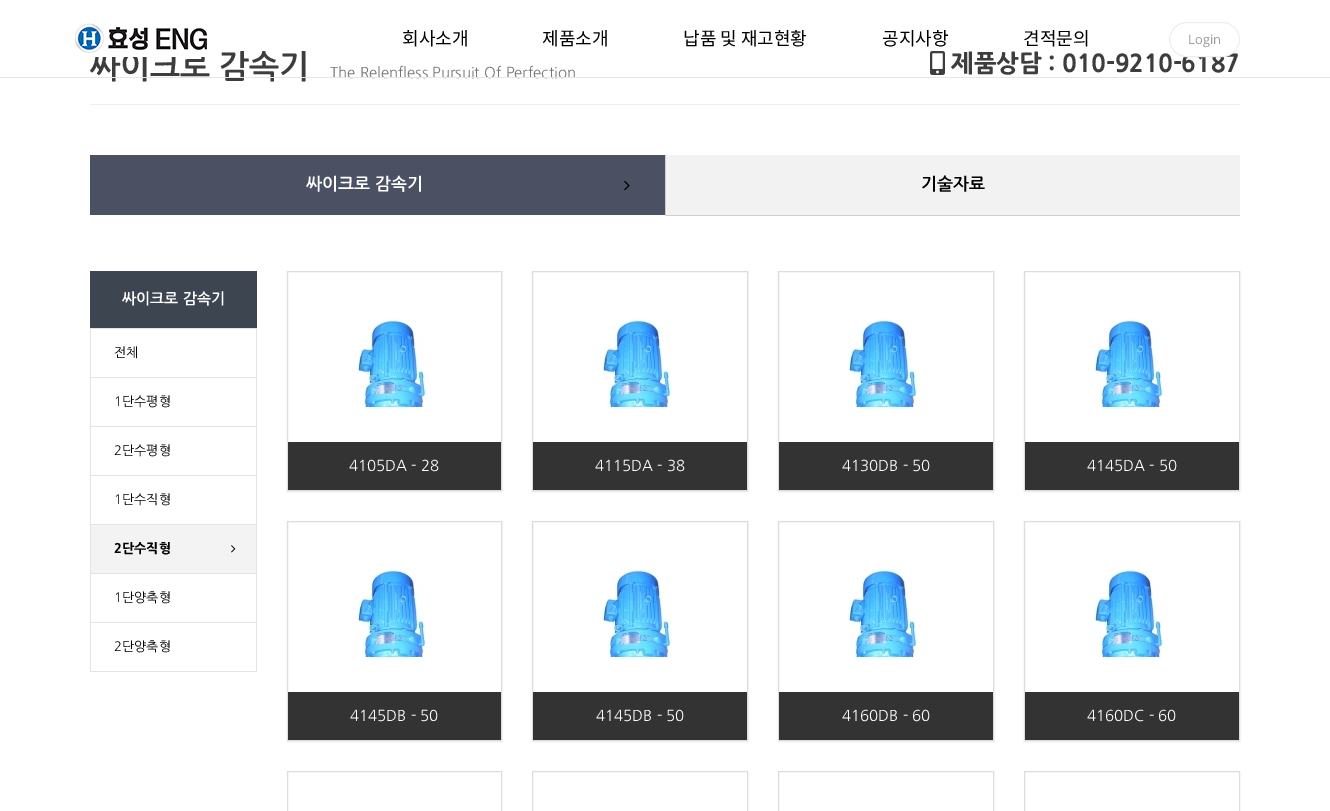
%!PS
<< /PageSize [1330 811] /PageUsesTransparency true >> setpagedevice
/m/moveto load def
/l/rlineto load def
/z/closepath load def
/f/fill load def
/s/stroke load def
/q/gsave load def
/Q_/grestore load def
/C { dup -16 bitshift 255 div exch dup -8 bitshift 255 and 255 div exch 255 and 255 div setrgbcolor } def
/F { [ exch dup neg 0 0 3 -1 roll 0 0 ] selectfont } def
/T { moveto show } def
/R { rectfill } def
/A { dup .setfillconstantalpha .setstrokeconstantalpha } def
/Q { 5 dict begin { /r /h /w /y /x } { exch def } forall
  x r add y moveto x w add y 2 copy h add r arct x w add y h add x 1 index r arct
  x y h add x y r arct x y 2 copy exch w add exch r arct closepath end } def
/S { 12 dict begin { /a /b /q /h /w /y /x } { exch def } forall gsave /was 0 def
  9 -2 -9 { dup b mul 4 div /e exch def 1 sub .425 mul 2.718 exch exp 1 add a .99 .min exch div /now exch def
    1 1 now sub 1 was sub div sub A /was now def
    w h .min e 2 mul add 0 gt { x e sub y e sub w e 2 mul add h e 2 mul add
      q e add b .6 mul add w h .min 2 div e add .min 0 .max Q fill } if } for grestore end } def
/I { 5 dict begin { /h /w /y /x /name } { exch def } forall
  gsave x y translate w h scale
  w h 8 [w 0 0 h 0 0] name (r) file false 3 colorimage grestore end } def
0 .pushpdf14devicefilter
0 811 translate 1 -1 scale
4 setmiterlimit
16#FFFFFF C
0 0 1330 811 R
/NanumGothic-Bold 32 F
16#3D3D3D C
(싸이크로 감속기) 90 78 T
/NanumGothic-Regular 15 F
16#777777 C
(The Relenfless Pursuit Of Perfection) 330 78 T
16#E6E6E6 C
0 77 1330 1 R
(1.rgb) 75 23 132 34 I
/NotoSansKR-Regular 18 F
16#000000 C
(회사소개) 402 45 T
(제품소개) 542 45 T
(납품 및 재고현황) 683 45 T
(공지사항) 882 45 T
(견적문의) 1023 45 T
/NanumGothic-ExtraBold 24 F
16#3D3D3D C
(제품상담 : 010-9210-6187) 951 72 T
16#FFFFFF C
1169.5 22.5 70 34 17 Q q f Q_
16#EEEEEE C
s
/OpenSans-Regular 13 F
16#9C9C9C C
(Login) 1188 44 T
16#EEEEEE C
90 104 1150 1 R
(2.rgb) 930 51 15 24 I
16#4B5163 C
90 155 575 60 R
/NanumGothic-Bold 17 F
16#FFFFFF C
(싸이크로 감속기) 306 190 T
(3.rgb) 624 180 6 11 I
16#F2F2F2 C
666 155 574 60 R
16#CFCFCF C
665 215 575 1 R
665 155 1 61 R
16#000000 C
(기술자료) 921 190 T
16#3D4550 C
90 271 167 57 R
/NanumGothic-Bold 15 F
16#FFFFFF C
(싸이크로 감속기) 122 304 T
16#E3E3E3 C
90 328 167 1 R
256 328 1 344 R
90 328 1 344 R
91 377 165 1 R
/NanumGothic-Regular 13 F
16#000000 C
(전체) 114 357 T
16#E3E3E3 C
91 426 165 1 R
16#000000 C
(1단수평형) 114 406 T
16#E3E3E3 C
91 475 165 1 R
16#000000 C
(2단수평형) 114 455 T
16#E3E3E3 C
91 524 165 1 R
16#000000 C
(1단수직형) 114 504 T
16#E3E3E3 C
91 573 165 1 R
16#F3F3F3 C
91 525 165 48 R
/NanumGothic-ExtraBold 13 F
16#000000 C
(2단수직형) 114 553 T
(4.rgb) 231 545 5 8 I
16#E3E3E3 C
91 622 165 1 R
/NanumGothic-Regular 13 F
16#000000 C
(1단양축형) 114 602 T
16#E3E3E3 C
91 671 165 1 R
16#000000 C
(2단양축형) 114 651 T
q
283 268 m 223 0 l 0 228 l -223 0 l z 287 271 m 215 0 l 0 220 l -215 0 l z eoclip newpath
287 272 215 220 0 1 .07 S
Q_
16#DDDDDD C
287.5 271.5 214 219 rectstroke
(5.rgb) 357 319 70 90 I
16#333333 C
288 442 213 48 R
/NanumGothic-Regular 15 F
16#FFFFFF C
(4105DA - 28) 349 471 T
q
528 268 m 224 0 l 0 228 l -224 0 l z 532 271 m 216 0 l 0 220 l -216 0 l z eoclip newpath
16#000000 C
532 272 216 220 0 1 .07 S
Q_
16#DDDDDD C
532.5 271.5 215 219 rectstroke
(5.rgb) 602 319 70 90 I
16#333333 C
533 442 214 48 R
16#FFFFFF C
(4115DA - 38) 595 471 T
q
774 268 m 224 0 l 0 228 l -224 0 l z 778 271 m 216 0 l 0 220 l -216 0 l z eoclip newpath
16#000000 C
778 272 216 220 0 1 .07 S
Q_
16#DDDDDD C
778.5 271.5 215 219 rectstroke
(5.rgb) 848 319 70 90 I
16#333333 C
779 442 214 48 R
16#FFFFFF C
(4130DB - 50) 842 471 T
q
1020 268 m 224 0 l 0 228 l -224 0 l z 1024 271 m 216 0 l 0 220 l -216 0 l z eoclip newpath
16#000000 C
1024 272 216 220 0 1 .07 S
Q_
16#DDDDDD C
1024.5 271.5 215 219 rectstroke
(5.rgb) 1094 319 70 90 I
16#333333 C
1025 442 214 48 R
16#FFFFFF C
(4145DA - 50) 1087 471 T
q
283 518 m 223 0 l 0 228 l -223 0 l z 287 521 m 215 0 l 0 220 l -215 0 l z eoclip newpath
16#000000 C
287 522 215 220 0 1 .07 S
Q_
16#DDDDDD C
287.5 521.5 214 219 rectstroke
(5.rgb) 357 569 70 90 I
16#333333 C
288 692 213 48 R
16#FFFFFF C
(4145DB - 50) 350 721 T
q
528 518 m 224 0 l 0 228 l -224 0 l z 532 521 m 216 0 l 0 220 l -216 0 l z eoclip newpath
16#000000 C
532 522 216 220 0 1 .07 S
Q_
16#DDDDDD C
532.5 521.5 215 219 rectstroke
(5.rgb) 602 569 70 90 I
16#333333 C
533 692 214 48 R
16#FFFFFF C
(4145DB - 50) 596 721 T
q
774 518 m 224 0 l 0 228 l -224 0 l z 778 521 m 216 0 l 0 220 l -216 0 l z eoclip newpath
16#000000 C
778 522 216 220 0 1 .07 S
Q_
16#DDDDDD C
778.5 521.5 215 219 rectstroke
(5.rgb) 848 569 70 90 I
16#333333 C
779 692 214 48 R
16#FFFFFF C
(4160DB - 60) 842 721 T
q
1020 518 m 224 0 l 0 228 l -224 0 l z 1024 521 m 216 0 l 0 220 l -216 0 l z eoclip newpath
16#000000 C
1024 522 216 220 0 1 .07 S
Q_
16#DDDDDD C
1024.5 521.5 215 219 rectstroke
(5.rgb) 1094 569 70 90 I
16#333333 C
1025 692 214 48 R
16#FFFFFF C
(4160DC - 60) 1087 721 T
16#DDDDDD C
287.5 771.5 214 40 rectstroke
532.5 771.5 215 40 rectstroke
778.5 771.5 215 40 rectstroke
1024.5 771.5 215 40 rectstroke
.poppdf14devicefilter showpage
